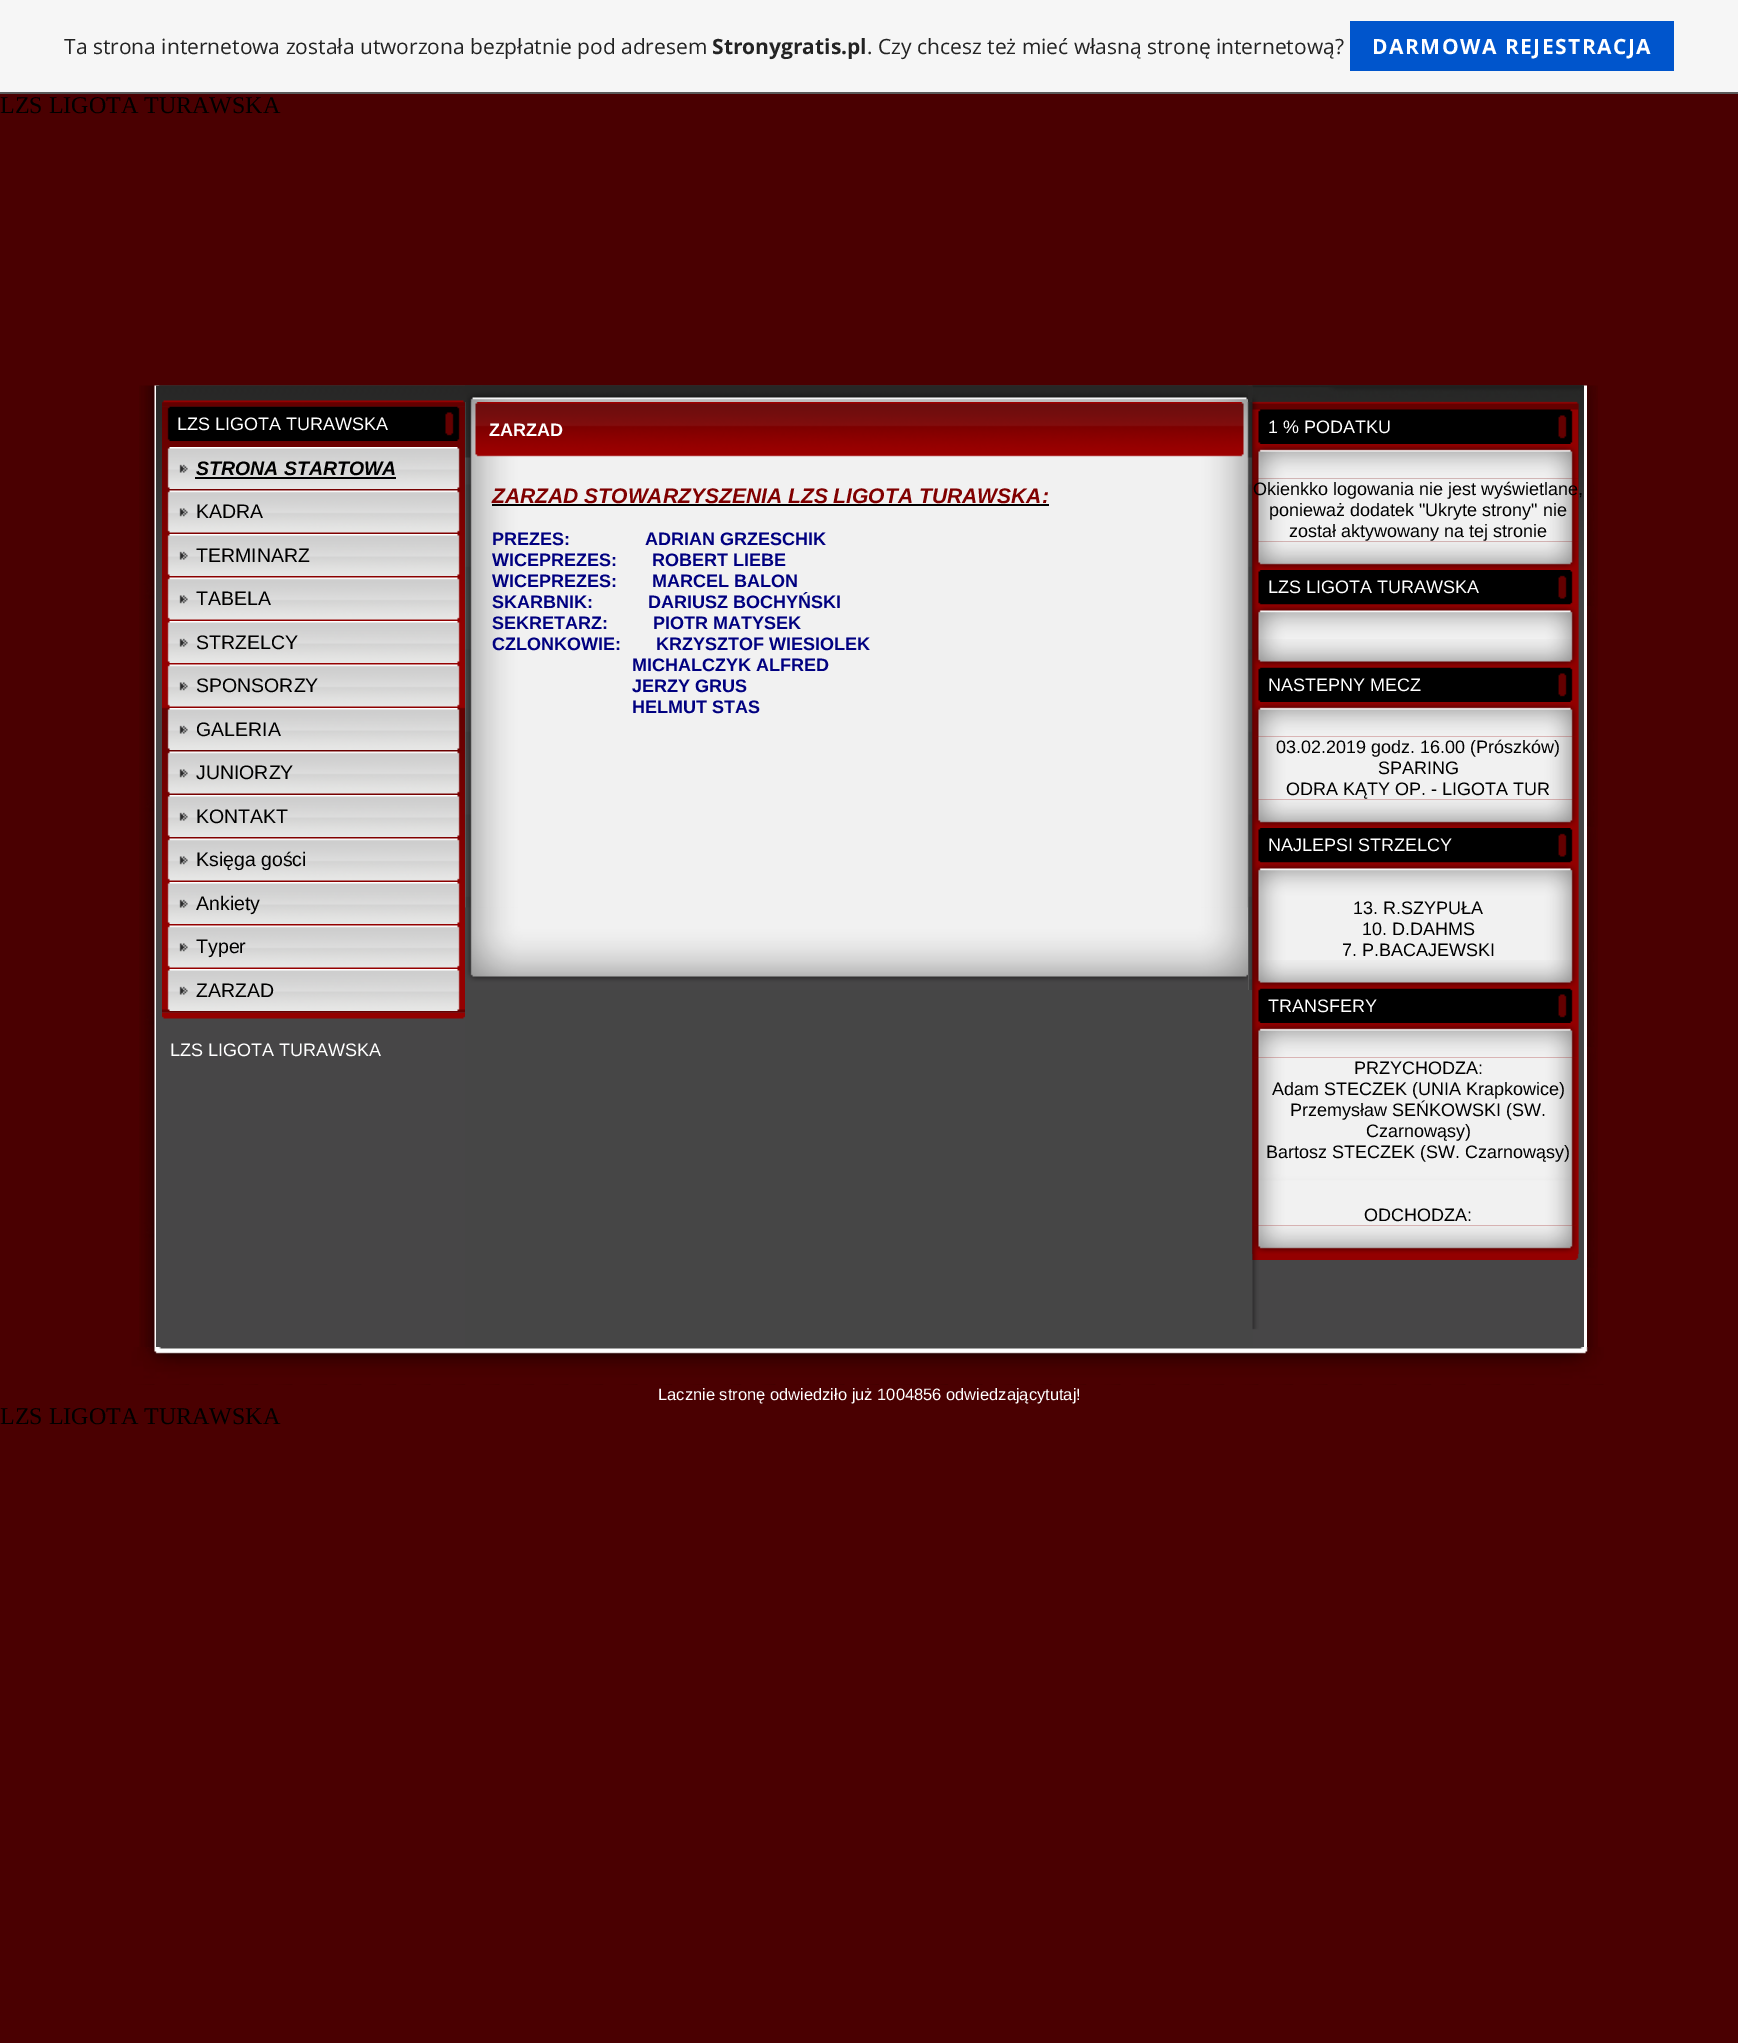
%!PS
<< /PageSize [1738 2043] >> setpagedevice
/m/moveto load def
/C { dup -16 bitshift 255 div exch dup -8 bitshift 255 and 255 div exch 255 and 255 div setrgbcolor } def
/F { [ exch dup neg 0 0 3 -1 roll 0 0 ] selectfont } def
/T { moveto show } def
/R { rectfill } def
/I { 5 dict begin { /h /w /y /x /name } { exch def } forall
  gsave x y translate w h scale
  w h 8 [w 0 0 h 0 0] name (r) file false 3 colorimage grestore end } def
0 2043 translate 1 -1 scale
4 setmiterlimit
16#4A0001 C
0 0 1738 2043 R
16#F6F6F6 C
0 0 1738 92 R
16#5A5A5A C
0 92 1738 2 R
/OpenSans-Regular 21 F
16#232323 C
(Ta strona internetowa została utworzona bezpłatnie pod adresem) 64 54 T
/OpenSans-Bold 21 F
(Stronygratis.pl) 712 54 T
/OpenSans-Regular 21 F
(. Czy chcesz też mieć własną stronę internetową?) 867 54 T
16#0055CC C
1350 21 324 50 R
/OpenSans-Bold 21 F
16#FFFFFF C
1372 54 m 1.5 0 (DARMOWA REJESTRACJA) ashow
/LiberationSerif-Regular 24 F
16#000000 C
(LZS LIGOTA TURAWSKA) 0 113 T
(1.rgb) 139 385 16 962 I
(2.rgb) 154 385 1433 962 I
(3.rgb) 156 385 309 962 I
(5.rgb) 162 406 303 607 I
(6.rgb) 162 406 303 35 I
(4.rgb) 162 400 303 7 I
/LiberationSans-Regular 18 F
16#FFFFFF C
(LZS LIGOTA TURAWSKA) 177 430 T
(7.rgb) 167 447 293 42 I
/LiberationSans-BoldItalic 19.5 F
16#000000 C
(STRONA STARTOWA) 196 475 T
195 477 201 2 R
(8.rgb) 167 490 293 43 I
/LiberationSans-Regular 19.5 F
(KADRA) 196 518 T
(9.rgb) 167 534 293 42 I
(TERMINARZ) 196 562 T
(10.rgb) 167 577 293 43 I
(TABELA) 196 605 T
(11.rgb) 167 621 293 42 I
(STRZELCY) 196 649 T
(12.rgb) 167 664 293 43 I
(SPONSORZY) 196 692 T
(13.rgb) 167 708 293 42 I
(GALERIA) 196 736 T
(14.rgb) 167 751 293 43 I
(JUNIORZY) 196 779 T
(15.rgb) 167 795 293 42 I
(KONTAKT) 196 823 T
(16.rgb) 167 838 293 43 I
(Księga gości) 196 866 T
(17.rgb) 167 882 293 42 I
(Ankiety) 196 910 T
(18.rgb) 167 925 293 43 I
(Typer) 196 953 T
(19.rgb) 167 969 293 42 I
(ZARZAD) 196 997 T
(20.rgb) 162 1012 303 7 I
/LiberationSans-Regular 18 F
16#FFFFFF C
(LZS LIGOTA TURAWSKA) 170 1056 T
(21.rgb) 465 385 788 185 I
(22.rgb) 465 385 783 17 I
(23.rgb) 465 402 788 588 I
(24.rgb) 465 402 788 56 I
/LiberationSans-Bold 18 F
(ZARZAD) 489 436 T
/LiberationSans-BoldItalic 21.05 F
16#800000 C
(ZARZAD STOWARZYSZENIA LZS LIGOTA TURAWSKA:) 492 503 T
16#000000 C
492 504 557 2 R
/LiberationSans-Bold 18 F
16#000080 C
(PREZES:               ADRIAN GRZESCHIK) 492 545 T
(WICEPREZES:       ROBERT LIEBE) 492 566 T
(WICEPREZES:       MARCEL BALON) 492 587 T
(SKARBNIK:           DARIUSZ BOCHYŃSKI) 492 608 T
(SEKRETARZ:         PIOTR MATYSEK) 492 629 T
(CZLONKOWIE:       KRZYSZTOF WIESIOLEK) 492 650 T
(MICHALCZYK ALFRED) 632 671 T
(JERZY GRUS) 632 692 T
(HELMUT STAS) 632 713 T
(25.rgb) 465 907 783 83 I
(26.rgb) 1252 385 332 962 I
(27.rgb) 1252 385 332 875 I
(28.rgb) 1252 385 332 869 I
(29.rgb) 1252 409 326 35 I
/LiberationSans-Regular 18 F
16#FFFFFF C
(1 % PODATKU) 1268 433 T
(30.rgb) 1252 444 326 35 I
(31.rgb) 1252 478 326 64 I
16#000000 C
(Okienkko logowania nie jest wyświetlane,) 1253 495 T
(ponieważ dodatek "Ukryte strony" nie) 1269 516 T
(został aktywowany na tej stronie) 1289 537 T
(32.rgb) 1252 541 326 29 I
(33.rgb) 1252 570 326 35 I
16#FFFFFF C
(LZS LIGOTA TURAWSKA) 1268 593 T
(34.rgb) 1252 604 326 35 I
(36.rgb) 1252 667 321 35 I
(35.rgb) 1252 639 325 29 I
(NASTEPNY MECZ) 1268 691 T
(37.rgb) 1252 702 325 35 I
(38.rgb) 1252 736 325 64 I
16#000000 C
(03.02.2019 godz. 16.00 \(Prószków\)) 1276 753 T
(SPARING) 1378 774 T
(ODRA KĄTY OP. - LIGOTA TUR) 1286 795 T
(39.rgb) 1252 799 325 29 I
(40.rgb) 1252 828 321 35 I
16#FFFFFF C
(NAJLEPSI STRZELCY) 1268 851 T
(41.rgb) 1252 862 325 35 I
(42.rgb) 1252 897 325 63 I
16#000000 C
(13. R.SZYPUŁA) 1353 914 T
(10. D.DAHMS) 1362 935 T
(7. P.BACAJEWSKI) 1342 956 T
(43.rgb) 1252 988 321 35 I
(35.rgb) 1252 960 325 29 I
16#FFFFFF C
(TRANSFERY) 1268 1012 T
(44.rgb) 1252 1023 325 35 I
(45.rgb) 1252 1057 325 169 I
16#000000 C
(PRZYCHODZA:) 1354 1074 T
(Adam STECZEK \(UNIA Krapkowice\)) 1272 1095 T
(Przemysław SEŃKOWSKI \(SW.) 1290 1116 T
(Czarnowąsy\)) 1366 1137 T
(Bartosz STECZEK \(SW. Czarnowąsy\)) 1266 1158 T
(ODCHODZA:) 1364 1221 T
(46.rgb) 1252 1225 325 29 I
(47.rgb) 1252 1254 327 6 I
(48.rgb) 1587 385 11 962 I
(49.rgb) 120 1384 1484 1 I
(50.rgb) 120 1347 1484 38 I
/LiberationSans-Regular 16.5 F
16#FFFFFF C
(Lacznie stronę odwiedziło już 1004856 odwiedzającytutaj!) 658 1400 T
/LiberationSerif-Regular 24 F
16#000000 C
(LZS LIGOTA TURAWSKA) 0 1424 T
showpage
